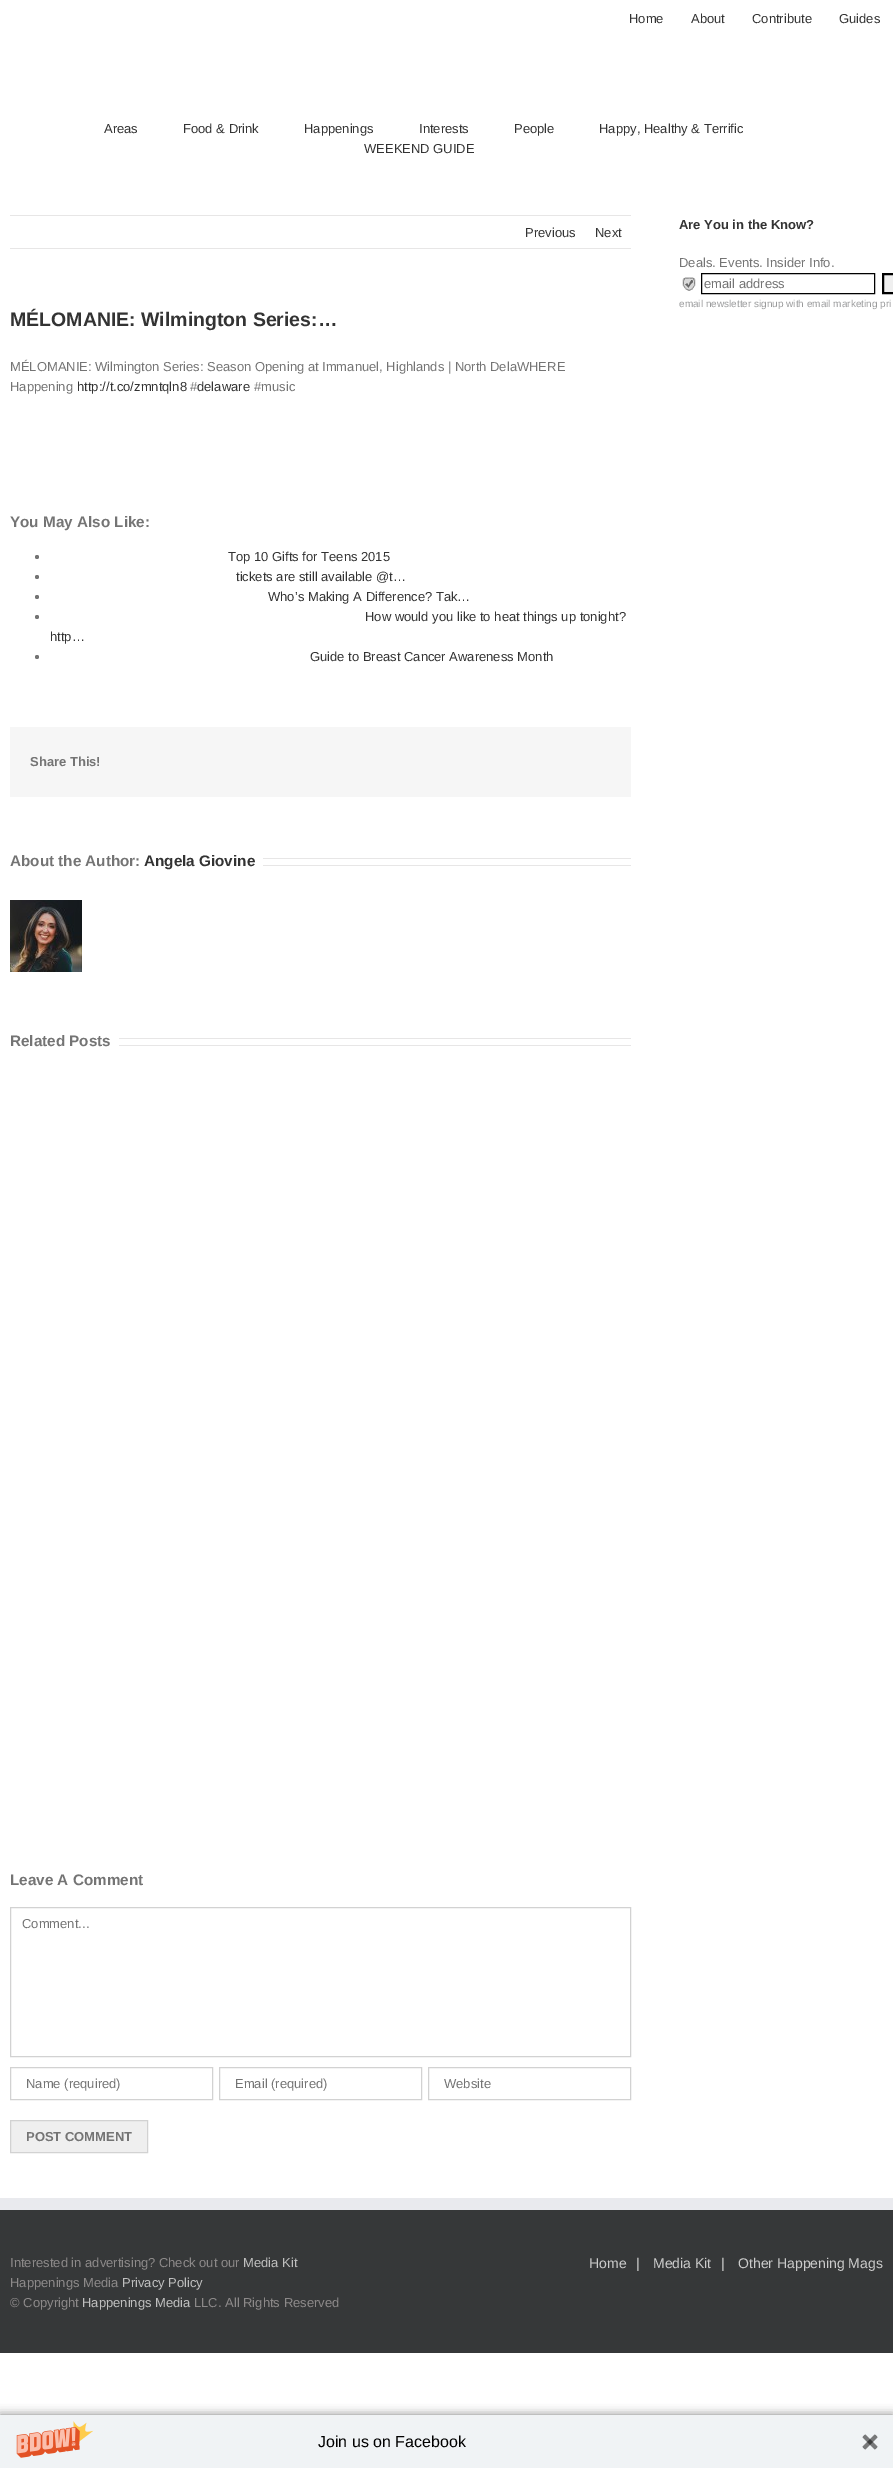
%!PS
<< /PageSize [893 2468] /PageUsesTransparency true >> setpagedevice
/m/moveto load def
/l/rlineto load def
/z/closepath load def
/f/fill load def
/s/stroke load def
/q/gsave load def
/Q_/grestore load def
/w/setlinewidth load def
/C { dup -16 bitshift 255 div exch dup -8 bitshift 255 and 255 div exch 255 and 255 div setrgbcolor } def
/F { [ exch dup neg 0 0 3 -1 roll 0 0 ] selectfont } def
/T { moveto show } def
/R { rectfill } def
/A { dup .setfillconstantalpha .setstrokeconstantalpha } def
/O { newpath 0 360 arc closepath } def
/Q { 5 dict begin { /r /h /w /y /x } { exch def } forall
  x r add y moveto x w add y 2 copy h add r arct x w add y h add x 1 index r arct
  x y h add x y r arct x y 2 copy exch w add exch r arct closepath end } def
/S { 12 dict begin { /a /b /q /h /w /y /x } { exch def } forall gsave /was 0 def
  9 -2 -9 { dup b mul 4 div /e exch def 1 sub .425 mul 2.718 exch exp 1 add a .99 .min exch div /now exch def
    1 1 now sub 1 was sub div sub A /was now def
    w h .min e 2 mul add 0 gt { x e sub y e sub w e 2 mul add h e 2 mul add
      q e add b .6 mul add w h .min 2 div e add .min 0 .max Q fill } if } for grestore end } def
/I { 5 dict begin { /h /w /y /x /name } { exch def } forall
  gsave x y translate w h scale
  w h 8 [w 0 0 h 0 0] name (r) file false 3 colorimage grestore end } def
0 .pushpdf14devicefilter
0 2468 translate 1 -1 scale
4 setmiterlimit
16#FFFFFF C
0 0 893 2468 R
/LiberationSans-Regular 13 F
16#333333 C
(Home) 629 23 T
(About) 691 23 T
(Contribute) 752 23 T
(Guides) 839 23 T
(Areas) 104 133 T
(Food & Drink) 183 133 T
(Happenings) 304 133 T
(Interests) 419 133 T
(People) 514 133 T
(Happy, Healthy & Terrific) 599 133 T
(WEEKEND GUIDE) 364 153 T
16#E7E6E6 C
10 215 621 1 R
10 248 621 1 R
16#333333 C
(Previous) 525 237 T
(Next) 595 237 T
/LiberationSans-Bold 19.5 F
(MÉLOMANIE: Wilmington Series:…) 10 326 T
/LiberationSans-Regular 13 F
16#747474 C
(MÉLOMANIE: Wilmington Series: Season Opening at Immanuel, Highlands | North DelaWHERE) 10 371 T
(Happening) 10 391 T
16#333333 C
(http://t.co/zmntqln8) 77 391 T
16#747474 C
(#) 190 391 T
16#333333 C
(delaware) 197 391 T
16#747474 C
(#music) 254 391 T
/LiberationSans-Bold 15.25 F
(You May Also Like:) 10 527 T
37 557 2 O f
/LiberationSans-Regular 13 F
16#333333 C
(Top 10 Gifts for Teens 2015) 228 561 T
16#747474 C
37 577 2 O f
16#333333 C
(tickets are still available @t…) 236 581 T
16#747474 C
37 597 2 O f
16#333333 C
(Who’s Making A Difference? Tak…) 268 601 T
16#747474 C
37 617 2 O f
16#333333 C
(How would you like to heat things up tonight?) 365 621 T
(http…) 50 641 T
16#747474 C
37 657 2 O f
16#333333 C
(Guide to Breast Cancer Awareness Month) 310 661 T
16#F6F6F6 C
10 727 621 70 R
/LiberationSans-Bold 13 F
16#747474 C
(Share This!) 30 766 T
/LiberationSans-Bold 15.25 F
(About the Author:) 10 866 T
16#333333 C
(Angela Giovine) 144 866 T
16#E7E6E6 C
263 858 368 1 R
263 865 368 1 R
(1.rgb) 10 900 72 72 I
16#747474 C
(Related Posts) 10 1046 T
16#E7E6E6 C
119 1038 512 1 R
119 1045 512 1 R
16#747474 C
(Leave A Comment) 10 1885 T
16#D2D2D2 C
10.5 1907.5 620 149 rectstroke
/LiberationSans-Regular 13 F
16#747474 C
(Comment...) 22 1928 T
16#D2D2D2 C
10.5 2067.5 202 32 rectstroke
16#747474 C
(Name \(required\)) 26 2088 T
16#D2D2D2 C
219.5 2067.5 202 32 rectstroke
16#747474 C
(Email \(required\)) 235 2088 T
16#D2D2D2 C
428.5 2067.5 202 32 rectstroke
16#747474 C
(Website) 444 2088 T
16#EFEFEF C
10.5 2120.5 m 137 0 l 0 32 l -137 0 l z q f Q_
16#D2D2D2 C
s
/LiberationSans-Bold 13 F
16#747474 C
(POST COMMENT) 26 2141 T
16#333333 C
(Are You in the Know?) 679 229 T
/LiberationSans-Regular 13 F
16#747474 C
(Deals. Events. Insider Info.) 679 267 T
(2.rgb) 682 277 14 14 I
16#000000 C
701.5 273.5 173 20 rectstroke
16#747474 C
(email address) 704 288 T
16#EFEFEF C
883 274 m 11 0 l 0 19 l -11 0 l z q f Q_
16#000000 C
2 w
s
/LiberationSans-Regular 10 F
16#999A9B C
(email newsletter signup with email marketing pri) 679 307 T
16#363839 C
0 2210 893 143 R
16#E9EAEE C
0 2198 893 12 R
/LiberationSans-Regular 13 F
16#8C8989 C
(Interested in advertising? Check out our) 10 2267 T
16#BFBFBF C
(Media Kit) 243 2267 T
16#8C8989 C
(Happenings Media) 10 2287 T
16#BFBFBF C
(Privacy Policy) 122 2287 T
16#8C8989 C
(© Copyright) 10 2307 T
16#BFBFBF C
(Happenings Media) 82 2307 T
16#8C8989 C
(LLC. All Rights Reserved) 194 2307 T
/LiberationSans-Regular 14 F
16#CCCCCC C
(Home) 589 2268 T
(|) 636 2268 T
(Media Kit) 653 2268 T
(|) 721 2268 T
(Other Happening Mags) 738 2268 T
16#000000 C
0 2415 893 53 0 5 .5 S
16#F0F3F5 C
0 2415 893 53 R
(3.rgb) 16 2421 78 37 I
/LiberationSans-Regular 16 F
16#000000 C
(Join us on Facebook) 318 2447 T
(4.rgb) 862 2434 16 16 I
.poppdf14devicefilter showpage
